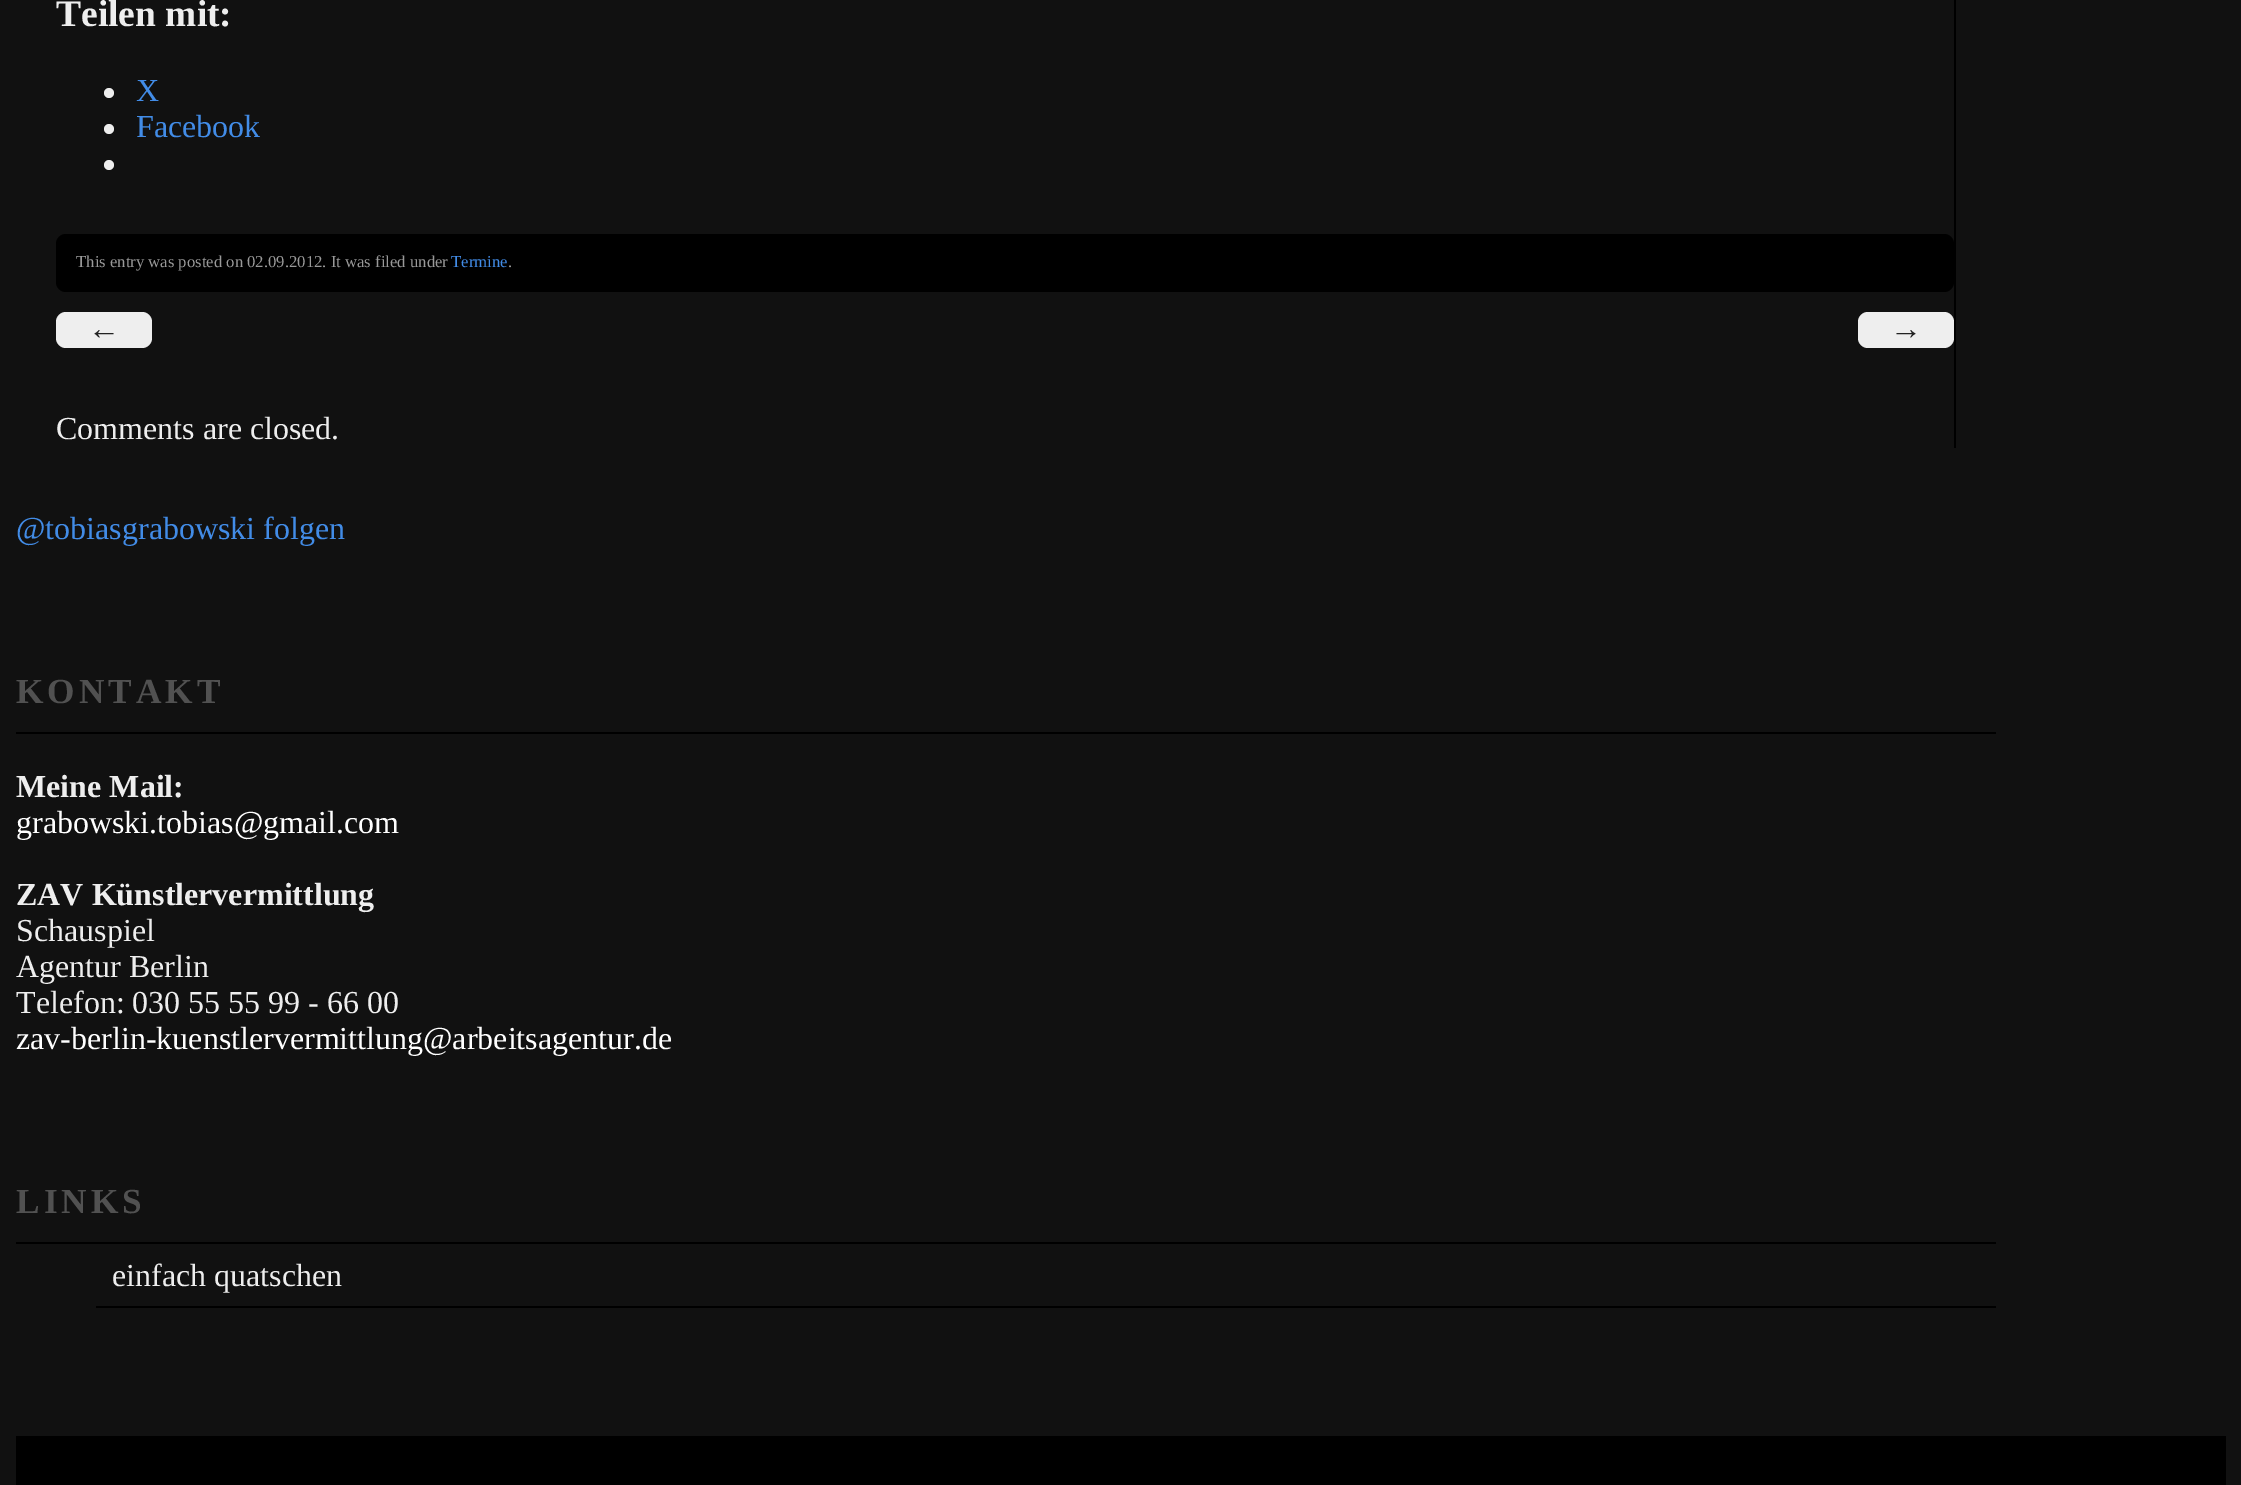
%!PS
<< /PageSize [2241 1485] >> setpagedevice
/m/moveto load def
/f/fill load def
/C { dup -16 bitshift 255 div exch dup -8 bitshift 255 and 255 div exch 255 and 255 div setrgbcolor } def
/F { [ exch dup neg 0 0 3 -1 roll 0 0 ] selectfont } def
/T { moveto show } def
/R { rectfill } def
/O { newpath 0 360 arc closepath } def
/Q { 5 dict begin { /r /h /w /y /x } { exch def } forall
  x r add y moveto x w add y 2 copy h add r arct x w add y h add x 1 index r arct
  x y h add x y r arct x y 2 copy exch w add exch r arct closepath end } def
0 1485 translate 1 -1 scale
4 setmiterlimit
16#111111 C
0 0 2241 1485 R
16#000000 C
1954 0 2 448 R
/LiberationSerif-Bold 37.5 F
16#EEEEEE C
(Teilen mit:) 56 26 T
109 93 5 O f
/LiberationSerif-Regular 32 F
16#428CE7 C
(X) 136 101 T
16#EEEEEE C
109 129 5 O f
16#428CE7 C
(Facebook) 136 137 T
16#EEEEEE C
109 165 5 O f
16#000000 C
56 234 1898 58 10 Q f
/LiberationSerif-Regular 16.7 F
16#999999 C
(This entry was posted on 02.09.2012. It was filed under) 76 267 T
16#428CE7 C
(Termine) 451 267 T
16#999999 C
(.) 508 267 T
16#EEEEEE C
56 312 96 36 10 Q f
/LiberationSerif-Regular 32 F
16#222222 C
(←) 88 339 T
16#EEEEEE C
1858 312 96 36 10 Q f
16#222222 C
(→) 1890 339 T
16#EEEEEE C
(Comments are closed.) 56 439 T
16#428CE7 C
(@tobiasgrabowski folgen) 16 539 T
16#000000 C
16 732 1980 2 R
/LiberationSerif-Bold 35.25 F
16#515151 C
16 703 m 4 0 (KONTAKT) ashow
/LiberationSerif-Bold 32 F
16#EEEEEE C
(Meine Mail:) 16 797 T
/LiberationSerif-Regular 32 F
16#FFFFFF C
(grabowski.tobias@gmail.com) 16 833 T
/LiberationSerif-Bold 32 F
16#EEEEEE C
(ZAV Künstlervermittlung) 16 905 T
/LiberationSerif-Regular 32 F
(Schauspiel) 16 941 T
(Agentur Berlin) 16 977 T
(Telefon: 030 55 55 99 - 66 00) 16 1013 T
16#FFFFFF C
(zav-berlin-kuenstlervermittlung@arbeitsagentur.de) 16 1049 T
16#000000 C
16 1242 1980 2 R
/LiberationSerif-Bold 35.25 F
16#515151 C
16 1213 m 4 0 (LINKS) ashow
16#000000 C
96 1306 1900 2 R
/LiberationSerif-Regular 32 F
16#EEEEEE C
(einfach quatschen) 112 1286 T
16#000000 C
16 1436 2210 49 R
showpage
